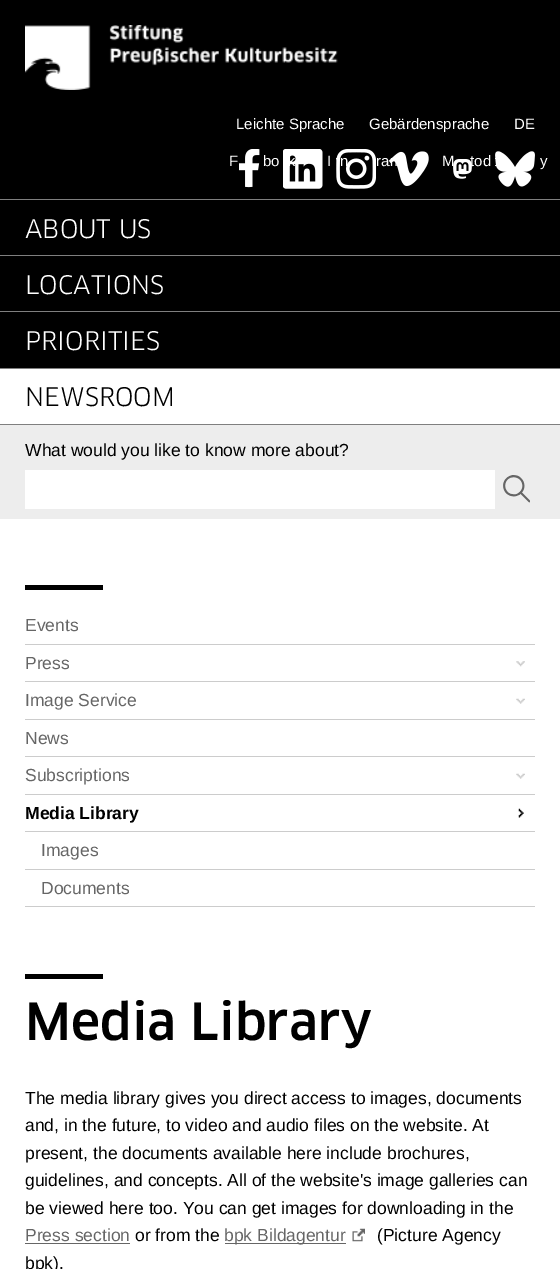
%!PS
<< /PageSize [560 1269] >> setpagedevice
/C { dup -16 bitshift 255 div exch dup -8 bitshift 255 and 255 div exch 255 and 255 div setrgbcolor } def
/F { [ exch dup neg 0 0 3 -1 roll 0 0 ] selectfont } def
/T { moveto show } def
/R { rectfill } def
/I { 5 dict begin { /h /w /y /x /name } { exch def } forall
  gsave x y translate w h scale
  w h 8 [w 0 0 h 0 0] name (r) file false 3 colorimage grestore end } def
0 1269 translate 1 -1 scale
4 setmiterlimit
16#FFFFFF C
0 0 560 1269 R
16#000000 C
0 0 560 368 R
(1.rgb) 25 25 313 65 I
/LiberationSans-Regular 15 F
16#FFFFFF C
(Leichte Sprache) 236 129 T
(Gebärdensprache) 369 129 T
(DE) 514 129 T
(2.rgb) 239 149 21 39 I
(F) 229 166 T
(bo) 263 166 T
(3.rgb) 283 149 40 40 I
(I) 327 166 T
(4.rgb) 336 149 40 40 I
(n) 340 166 T
(ra) 376 166 T
(5.rgb) 389 151 40 35 I
(6.rgb) 453 159 19 20 I
(M) 442 166 T
(tod) 470 166 T
(7.rgb) 495 151 40 36 I
(y) 540 166 T
16#7F7F7F C
0 199 560 1 R
0 255 560 1 R
/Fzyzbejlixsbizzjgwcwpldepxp-Regular 25 F
16#FFFFFF C
(ABOUT US) 25 238 T
16#7F7F7F C
0 311 560 1 R
16#FFFFFF C
(LOCATIONS) 25 294 T
16#7F7F7F C
0 368 560 1 R
16#FFFFFF C
(PRIORITIES) 25 350 T
16#7F7F7F C
0 424 560 1 R
16#000000 C
(NEWSROOM) 25 406 T
16#EDEDED C
0 425 560 94 R
/LiberationSans-Regular 17.5 F
16#000000 C
(What would you like to know more about?) 25 456 T
16#FFFFFF C
25 470 470 39 R
(8.rgb) 503 475 27 28 I
16#000000 C
25 585 78 5 R
16#CCCCCC C
25 906 510 1 R
25 644 510 1 R
16#666666 C
(Events) 25 631 T
16#CCCCCC C
25 681 510 1 R
(9.rgb) 516 661 9 6 I
16#666666 C
(Press) 25 669 T
16#CCCCCC C
25 719 510 1 R
(10.rgb) 516 698 9 6 I
16#666666 C
(Image Service) 25 706 T
16#CCCCCC C
25 756 510 1 R
16#666666 C
(News) 25 744 T
16#CCCCCC C
25 794 510 1 R
(10.rgb) 516 773 9 6 I
16#666666 C
(Subscriptions) 25 781 T
(11.rgb) 518 808 6 10 I
/LiberationSans-Bold 17.5 F
16#000000 C
(Media Library) 25 819 T
16#CCCCCC C
25 831 510 1 R
25 869 510 1 R
/LiberationSans-Regular 17.5 F
16#666666 C
(Images) 41 856 T
(Documents) 41 894 T
16#000000 C
25 974 78 5 R
/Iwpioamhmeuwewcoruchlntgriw-Medium 50 F
(Media Library) 25 1040 T
/LiberationSans-Regular 17.5 F
(The media library gives you direct access to images, documents) 25 1104 T
(and, in the future, to video and audio files on the website. At) 25 1131 T
(present, the documents available here include brochures,) 25 1159 T
(guidelines, and concepts. All of the website's image galleries can) 25 1186 T
(be viewed here too. You can get images for downloading in the) 25 1214 T
16#666666 C
(Press section) 25 1241 T
25 1243 105 1 R
16#000000 C
(or from the) 135 1241 T
16#666666 C
225 1243 121 1 R
(bpk Bildagentur) 224 1241 T
(12.rgb) 352 1228 13 14 I
16#000000 C
(\(Picture Agency) 377 1241 T
(bpk\).) 25 1269 T
showpage
